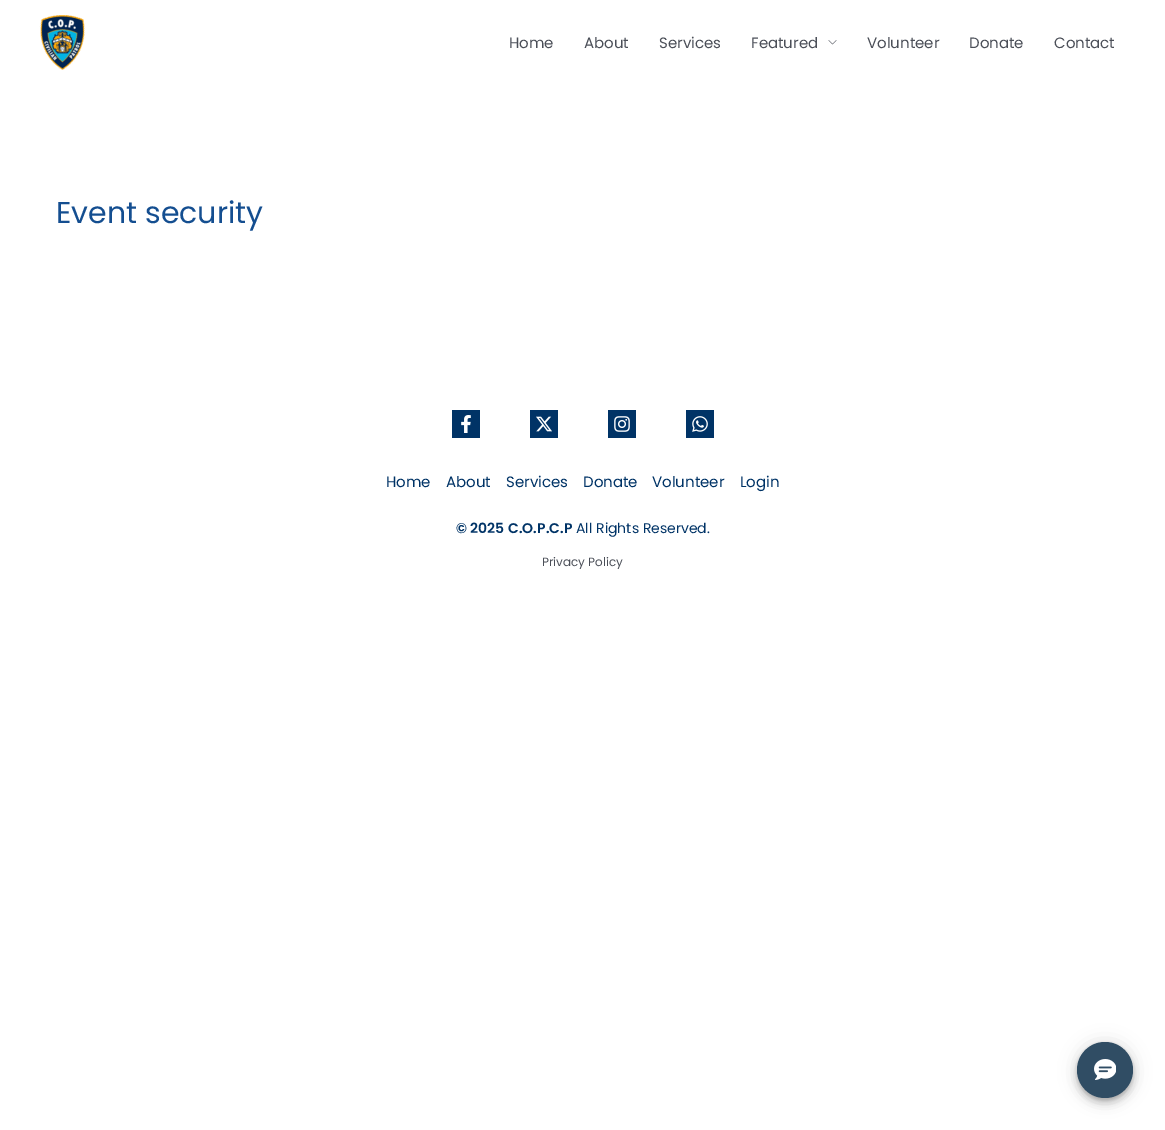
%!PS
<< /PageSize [1165 1130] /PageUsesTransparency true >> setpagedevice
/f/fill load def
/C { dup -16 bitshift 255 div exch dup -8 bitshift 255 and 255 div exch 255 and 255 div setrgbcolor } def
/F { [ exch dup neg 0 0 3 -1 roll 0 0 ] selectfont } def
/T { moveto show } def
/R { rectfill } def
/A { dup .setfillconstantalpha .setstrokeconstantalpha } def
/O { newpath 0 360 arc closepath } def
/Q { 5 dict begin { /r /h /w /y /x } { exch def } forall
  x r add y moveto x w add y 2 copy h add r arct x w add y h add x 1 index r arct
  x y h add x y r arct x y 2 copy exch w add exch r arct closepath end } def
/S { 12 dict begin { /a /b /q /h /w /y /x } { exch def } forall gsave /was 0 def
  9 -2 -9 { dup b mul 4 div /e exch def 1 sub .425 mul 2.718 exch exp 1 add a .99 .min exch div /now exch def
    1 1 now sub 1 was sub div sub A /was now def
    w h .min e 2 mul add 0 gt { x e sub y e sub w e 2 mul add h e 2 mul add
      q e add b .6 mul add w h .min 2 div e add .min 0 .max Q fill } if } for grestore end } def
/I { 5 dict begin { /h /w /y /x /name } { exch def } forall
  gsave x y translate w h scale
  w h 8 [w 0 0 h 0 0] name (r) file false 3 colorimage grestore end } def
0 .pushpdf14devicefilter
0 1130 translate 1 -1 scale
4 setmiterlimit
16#FFFFFF C
0 0 1165 1130 R
(1.rgb) 39 15 47 55 I
/Poppins-Regular 15 F
16#4B4F58 C
(Home) 509 48 T
(About) 584 48 T
(Services) 659 48 T
(Featured) 751 48 T
(2.rgb) 828 40 9 5 I
(Volunteer) 867 48 T
(Donate) 969 48 T
(Contact) 1054 48 T
/Poppins-Regular 30 F
16#144E90 C
(Event security) 56 223 T
16#003366 C
452 410 28 28 R
(3.rgb) 461 415 10 18 I
530 410 28 28 R
(4.rgb) 536 416 16 16 I
608 410 28 28 R
(5.rgb) 614 416 16 16 I
686 410 28 28 R
(6.rgb) 692 416 16 16 I
/Poppins-Regular 15 F
(Home) 386 487 T
(About) 446 487 T
(Services) 506 487 T
(Donate) 583 487 T
(Volunteer) 652 487 T
(Login) 740 487 T
/Poppins-SemiBold 14 F
(© 2025) 456 533 T
(C.O.P.C.P) 508 533 T
/Poppins-Regular 14 F
(All Rights Reserved.) 576 533 T
/Poppins-Regular 12 F
16#4B4F58 C
(Privacy Policy) 542 566 T
16#000000 C
1077 1043 56 56 28 9 .12 S
1077 1048 56 56 28 5 .14 S
1078 1046 54 54 27 2.5 .2 S
16#304D64 C
1105 1070 28 O f
(7.rgb) 1094 1059 22 21 I
.poppdf14devicefilter showpage
